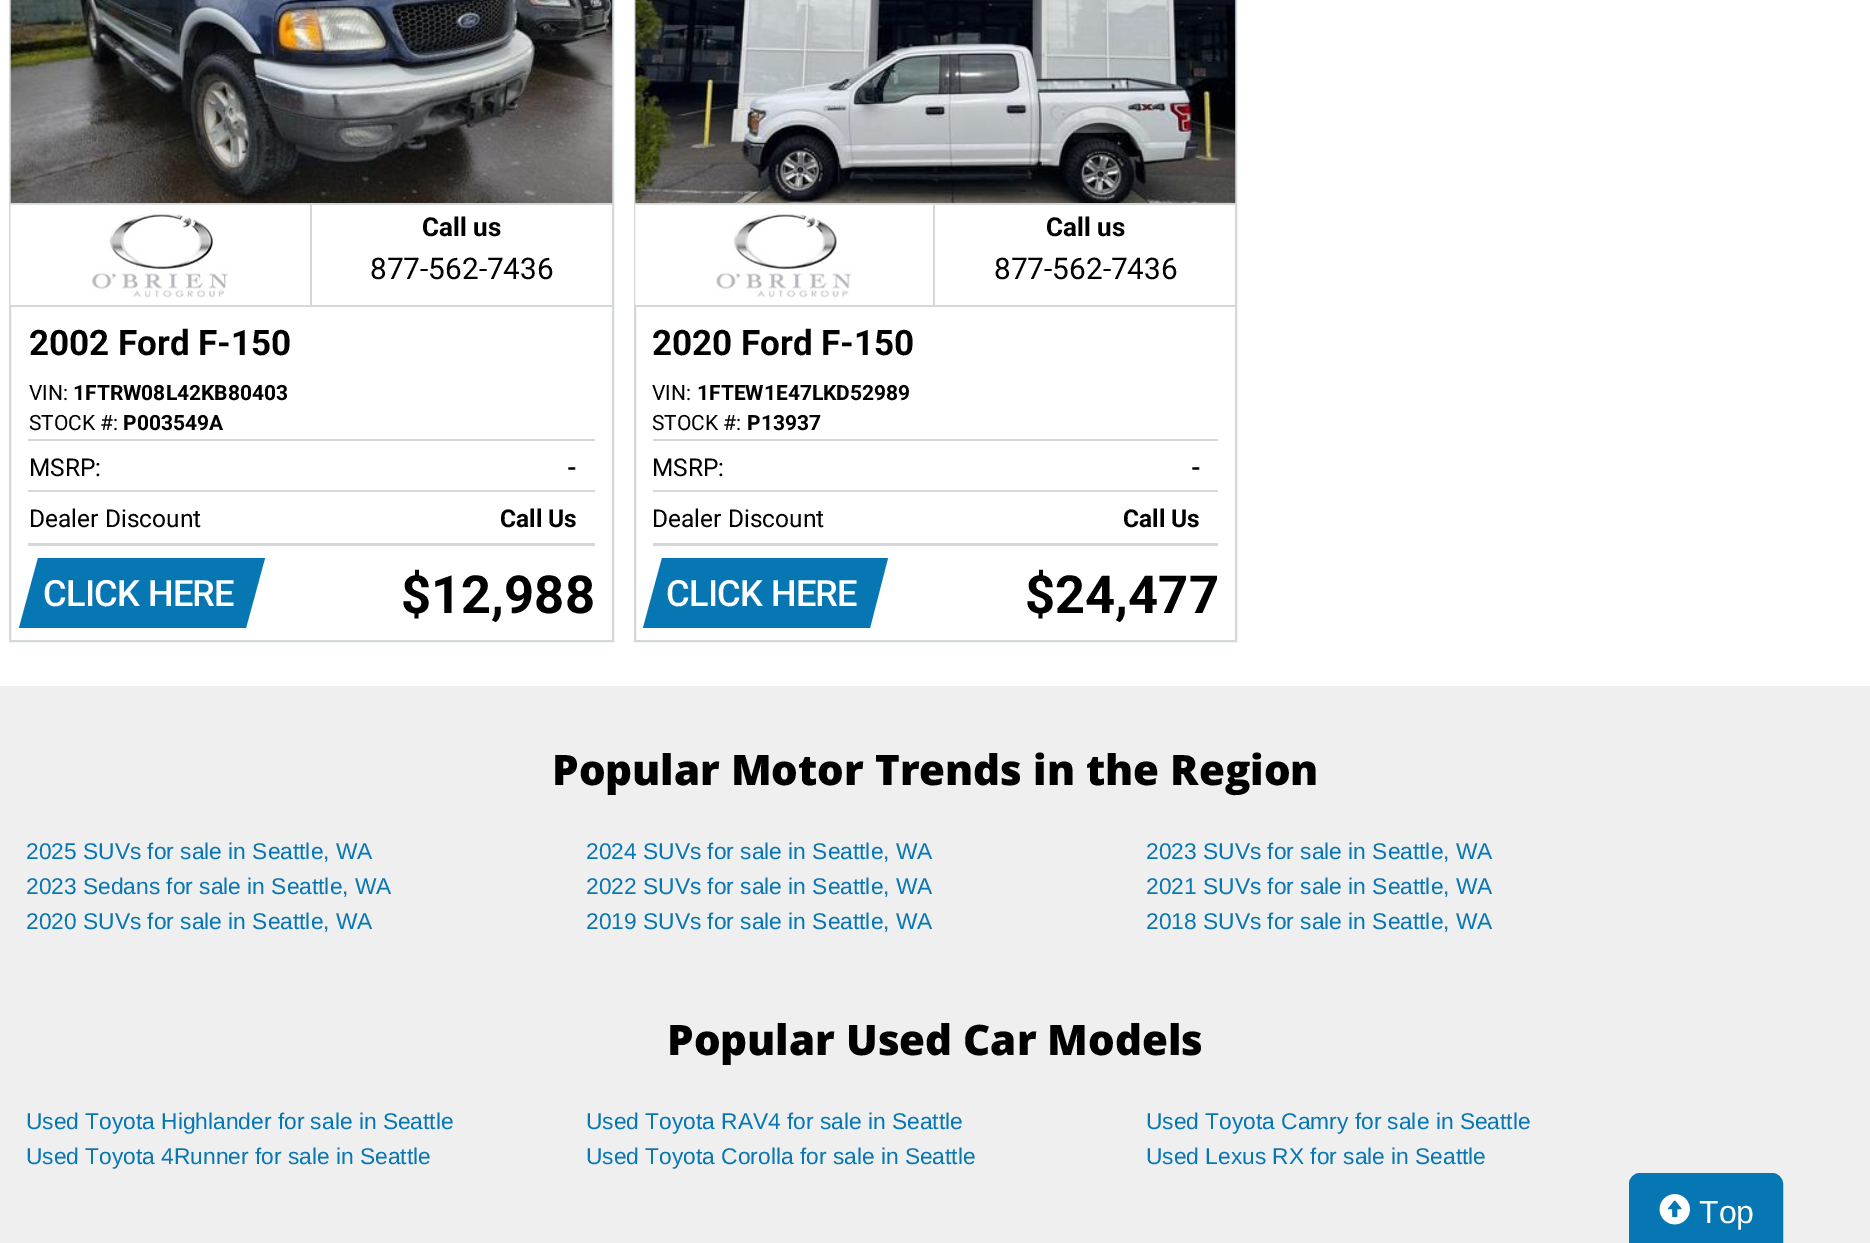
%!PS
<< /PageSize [1870 1243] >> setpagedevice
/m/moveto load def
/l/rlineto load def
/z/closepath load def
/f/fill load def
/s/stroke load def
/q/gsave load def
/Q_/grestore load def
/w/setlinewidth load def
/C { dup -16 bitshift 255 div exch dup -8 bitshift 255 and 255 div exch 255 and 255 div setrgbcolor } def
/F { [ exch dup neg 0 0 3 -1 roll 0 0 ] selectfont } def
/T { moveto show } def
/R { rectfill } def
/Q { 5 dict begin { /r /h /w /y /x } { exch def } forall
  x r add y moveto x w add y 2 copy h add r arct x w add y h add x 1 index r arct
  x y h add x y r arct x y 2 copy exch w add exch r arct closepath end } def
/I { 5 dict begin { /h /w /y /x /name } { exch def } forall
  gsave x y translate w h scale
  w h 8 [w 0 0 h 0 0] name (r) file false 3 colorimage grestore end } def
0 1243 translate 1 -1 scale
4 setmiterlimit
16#FFFFFF C
0 0 1870 1243 R
16#D4D8D9 C
2 w
10 -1 603 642 rectstroke
(1.rgb) 10 0 603 203 I
11 203 602 2 R
310 203 2 103 R
11 305 602 2 R
(2.rgb) 10 204 300 101 I
/Roboto-Bold 26 F
16#000000 C
(Call us) 422 236 T
/Roboto-Regular 29.75 F
(877-562-7436) 370 279 T
/Roboto-Bold 35 F
(2002 Ford F-150) 29 355 T
/Roboto-Regular 21 F
(VIN:) 29 400 T
/Roboto-Bold 21 F
(1FTRW08L42KB80403) 73 400 T
/Roboto-Regular 21 F
(STOCK #:) 29 430 T
/Roboto-Bold 21 F
(P003549A) 123 430 T
16#D4D8D9 C
28 439 567 2 R
28 490 567 2 R
/Roboto-Regular 24.5 F
16#000000 C
(MSRP:) 29 476 T
/Roboto-Bold 24.5 F
(-) 567 476 T
16#D4D8D9 C
28 543 567 3 R
/Roboto-Regular 24.5 F
16#000000 C
(Dealer Discount) 29 527 T
/Roboto-Bold 24.5 F
(Call Us) 500 527 T
16#0777B3 C
38 558 m 227 0 l -19 70 l -227 0 l z f
/Roboto-Medium 36.25 F
16#FFFFFF C
43 606 m -.75 0 (CLICK HERE) ashow
/Roboto-Bold 52.5 F
16#000000 C
($12,988) 401 613 T
16#D4D8D9 C
635 -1 601 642 rectstroke
(3.rgb) 635 0 601 203 I
635 203 601 2 R
933 203 2 103 R
635 305 601 2 R
(4.rgb) 635 204 298 101 I
/Roboto-Bold 26 F
16#000000 C
(Call us) 1046 236 T
/Roboto-Regular 29.75 F
(877-562-7436) 994 279 T
/Roboto-Bold 35 F
(2020 Ford F-150) 652 355 T
/Roboto-Regular 21 F
(VIN:) 652 400 T
/Roboto-Bold 21 F
(1FTEW1E47LKD52989) 697 400 T
/Roboto-Regular 21 F
(STOCK #:) 652 430 T
/Roboto-Bold 21 F
(P13937) 747 430 T
16#D4D8D9 C
653 439 565 2 R
653 490 565 2 R
/Roboto-Regular 24.5 F
16#000000 C
(MSRP:) 652 476 T
/Roboto-Bold 24.5 F
(-) 1191 476 T
16#D4D8D9 C
653 543 565 3 R
/Roboto-Regular 24.5 F
16#000000 C
(Dealer Discount) 652 527 T
/Roboto-Bold 24.5 F
(Call Us) 1123 527 T
16#0777B3 C
662 558 m 226 0 l -18 70 l -227 0 l z f
/Roboto-Medium 36.25 F
16#FFFFFF C
666 606 m -.75 0 (CLICK HERE) ashow
/Roboto-Bold 52.5 F
16#000000 C
($24,477) 1025 613 T
16#EFEFEF C
0 686 1870 557 R
16#0777B3 C
1630 1174 152 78 10 Q q f Q_
s
(5.rgb) 1659 1194 31 31 I
/LiberationSans-Regular 32 F
16#FFFFFF C
(Top) 1699 1223 T
/OpenSans-ExtraBold 42 F
16#000000 C
(Popular Motor Trends in the Region) 552 785 T
/LiberationSans-Regular 22.75 F
16#0777B3 C
(2025 SUVs for sale in Seattle, WA) 26 859 T
(2024 SUVs for sale in Seattle, WA) 586 859 T
(2023 SUVs for sale in Seattle, WA) 1146 859 T
(2023 Sedans for sale in Seattle, WA) 26 894 T
(2022 SUVs for sale in Seattle, WA) 586 894 T
(2021 SUVs for sale in Seattle, WA) 1146 894 T
(2020 SUVs for sale in Seattle, WA) 26 929 T
(2019 SUVs for sale in Seattle, WA) 586 929 T
(2018 SUVs for sale in Seattle, WA) 1146 929 T
/OpenSans-ExtraBold 42 F
16#000000 C
(Popular Used Car Models) 667 1055 T
/LiberationSans-Regular 22.75 F
16#0777B3 C
(Used Toyota Highlander for sale in Seattle) 26 1129 T
(Used Toyota RAV4 for sale in Seattle) 586 1129 T
(Used Toyota Camry for sale in Seattle) 1146 1129 T
(Used Toyota 4Runner for sale in Seattle) 26 1164 T
(Used Toyota Corolla for sale in Seattle) 586 1164 T
(Used Lexus RX for sale in Seattle) 1146 1164 T
showpage
